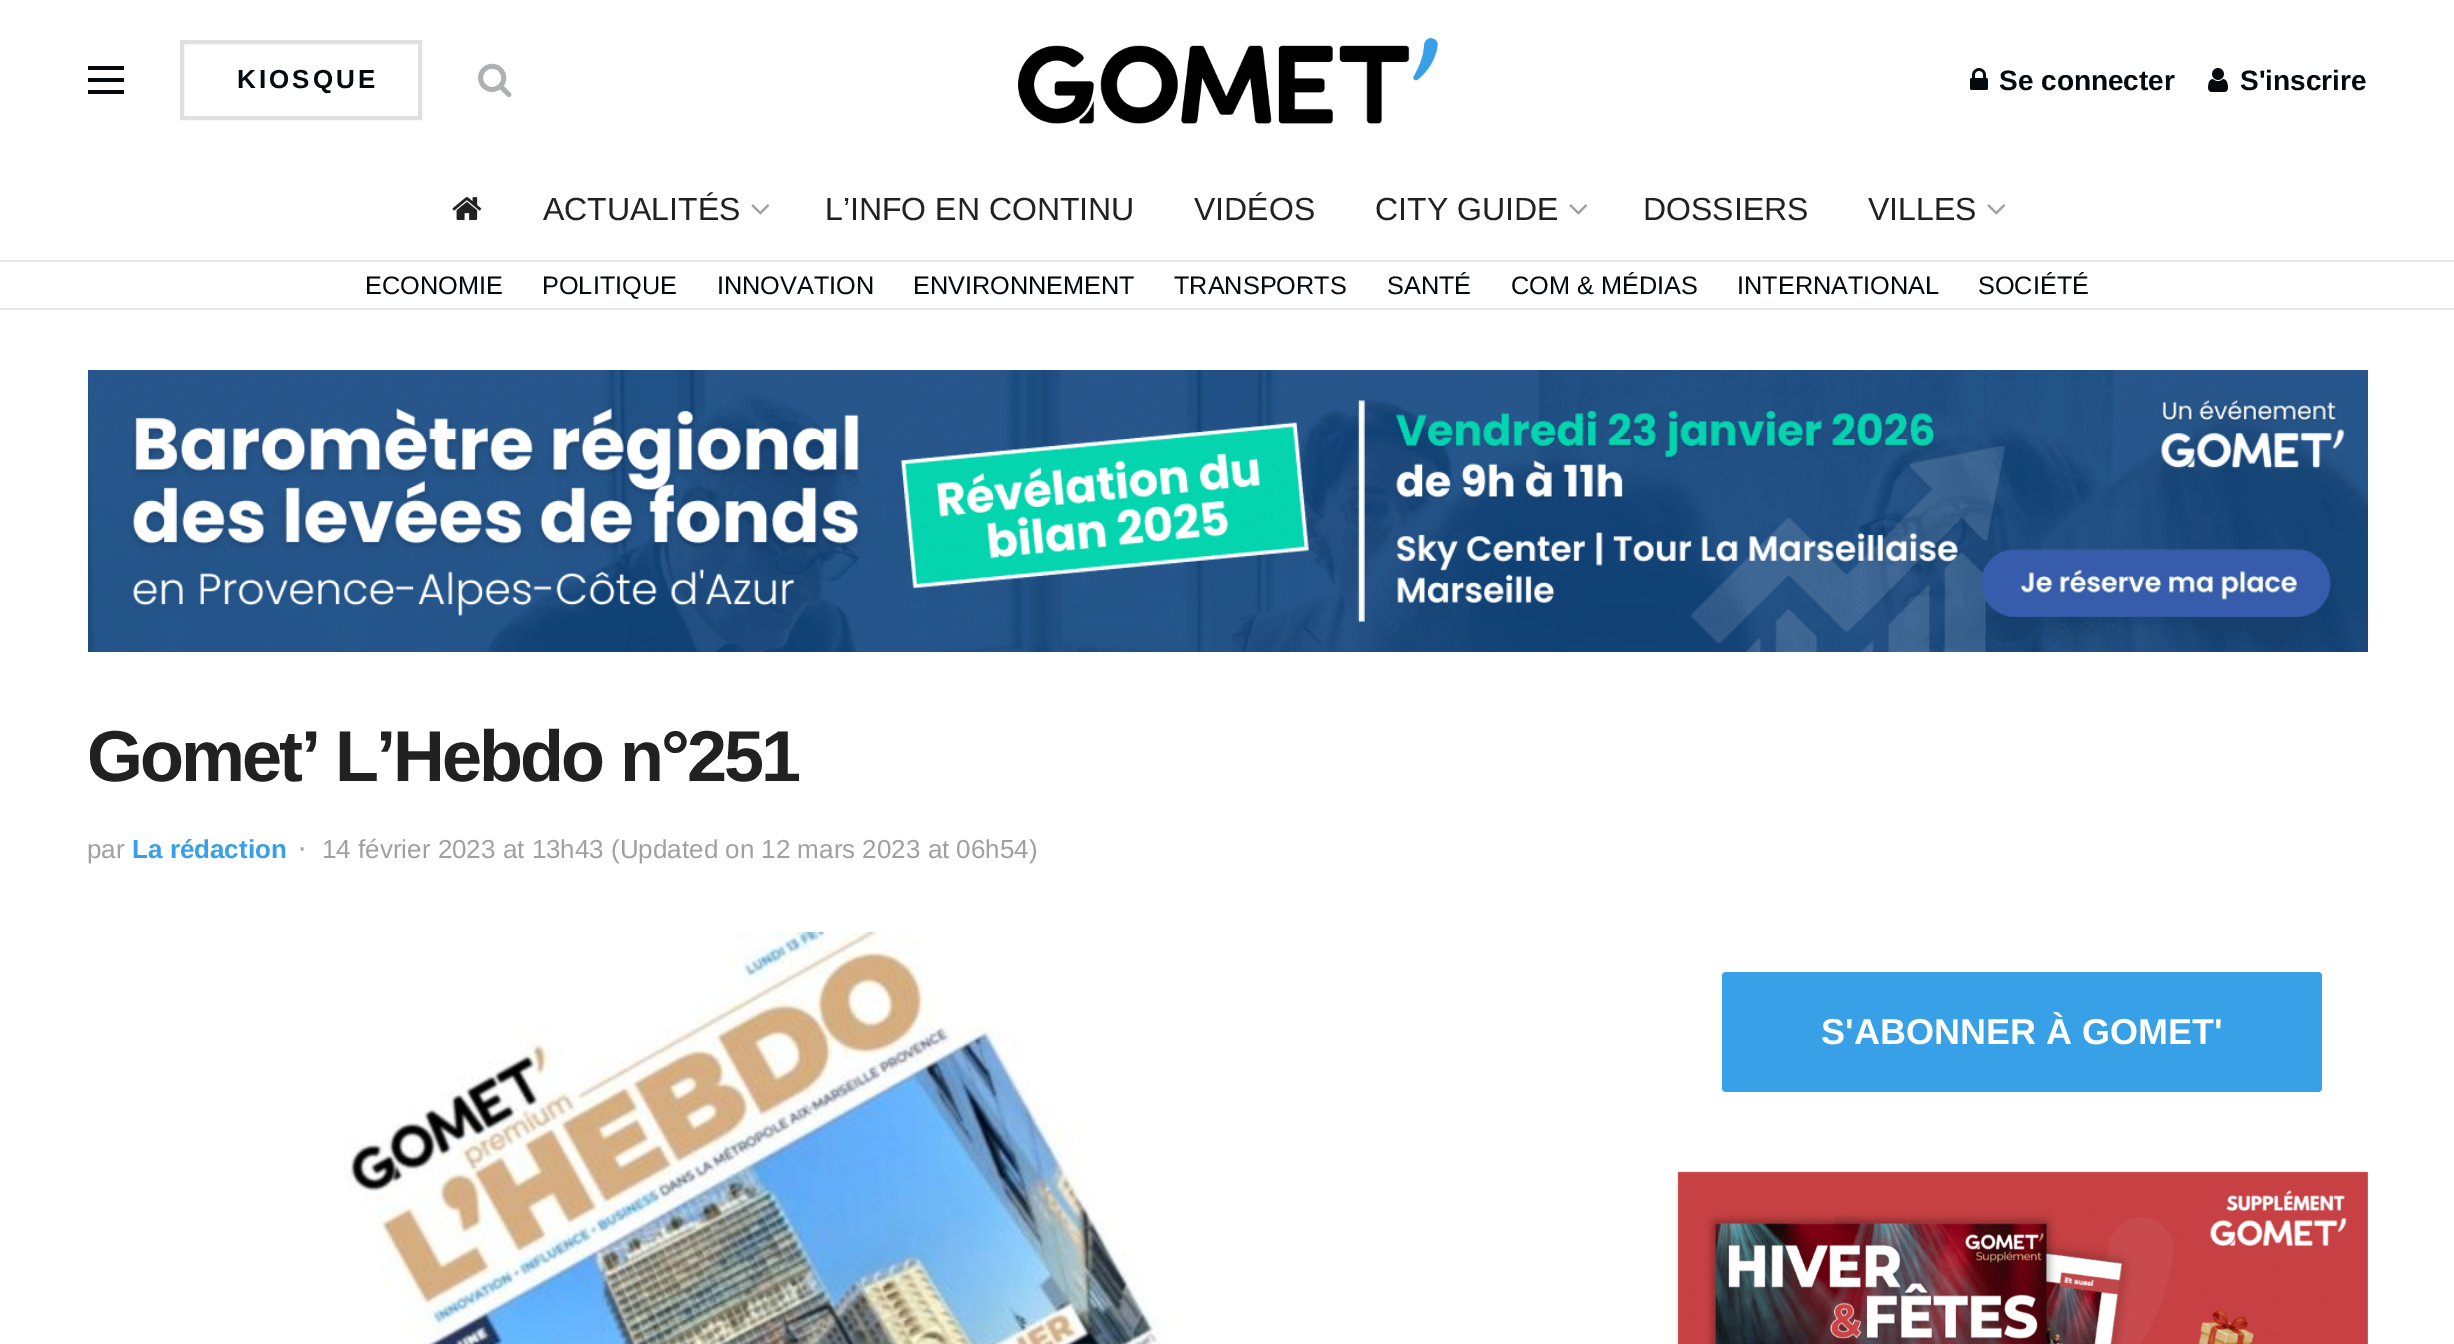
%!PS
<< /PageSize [2454 1344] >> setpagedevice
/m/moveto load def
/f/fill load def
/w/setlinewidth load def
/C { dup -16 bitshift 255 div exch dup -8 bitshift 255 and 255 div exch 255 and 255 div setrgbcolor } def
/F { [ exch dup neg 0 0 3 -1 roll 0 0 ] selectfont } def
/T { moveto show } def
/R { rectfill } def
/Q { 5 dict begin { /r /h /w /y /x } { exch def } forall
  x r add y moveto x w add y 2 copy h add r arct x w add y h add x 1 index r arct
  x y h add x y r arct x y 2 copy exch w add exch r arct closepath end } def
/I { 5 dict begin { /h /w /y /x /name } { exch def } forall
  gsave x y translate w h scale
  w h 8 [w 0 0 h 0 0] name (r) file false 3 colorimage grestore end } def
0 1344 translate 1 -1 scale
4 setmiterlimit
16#FFFFFF C
0 0 2454 1344 R
16#03090D C
88 66 36 4 R
88 78 36 4 R
88 90 36 4 R
16#E0E0E0 C
4 w
182 42 238 76 rectstroke
/LiberationSans-Bold 26 F
16#03090D C
237 88 m 3 0 (KIOSQUE) ashow
(1.rgb) 478 63 34 35 I
(2.rgb) 1018 38 420 86 I
(3.rgb) 1970 68 18 22 I
/LiberationSans-Bold 28 F
(Se connecter) 1999 90 T
(4.rgb) 2208 68 20 24 I
(S'inscrire) 2240 90 T
16#E8E8E8 C
0 260 2454 2 R
(5.rgb) 452 197 30 23 I
/LiberationSans-Regular 32 F
16#212121 C
(ACTUALITÉS) 543 220 T
(6.rgb) 751 204 19 11 I
(L’INFO EN CONTINU) 825 220 T
(VIDÉOS) 1194 220 T
(CITY GUIDE) 1375 220 T
(6.rgb) 1569 204 19 11 I
(DOSSIERS) 1643 220 T
(VILLES) 1868 220 T
(6.rgb) 1987 204 19 11 I
16#E5E9EA C
0 308 2454 2 R
/LiberationSans-Regular 25.25 F
16#03090D C
(ECONOMIE) 365 294 T
(POLITIQUE) 542 294 T
(INNOVATION) 717 294 T
(ENVIRONNEMENT) 913 294 T
(TRANSPORTS) 1174 294 T
(SANTÉ) 1387 294 T
(COM & MÉDIAS) 1511 294 T
(INTERNATIONAL) 1737 294 T
(SOCIÉTÉ) 1978 294 T
(7.rgb) 88 370 2280 282 I
/LiberationSans-Bold 72 F
16#212121 C
87 781 m -2.9 0 (Gomet’ L’Hebdo n°251) ashow
/LiberationSans-Regular 26 F
16#A0A0A0 C
(par) 87 858 T
/LiberationSans-Bold 26 F
16#37A0E6 C
(La rédaction) 132 858 T
/DejaVuSans-Regular 26 F
16#A0A0A0 C
(⋅) 298 858 T
/LiberationSans-Regular 26 F
(14 février 2023 at 13h43 \(Updated on 12 mars 2023 at 06h54\)) 322 858 T
(8.rgb) 88 932 1500 412 I
16#37A0E6 C
1722 972 600 120 4 Q f
/LiberationSans-Bold 36 F
16#FFFFFF C
(S'ABONNER À GOMET') 1821 1044 T
(9.rgb) 1677 1171 691 173 I
showpage
